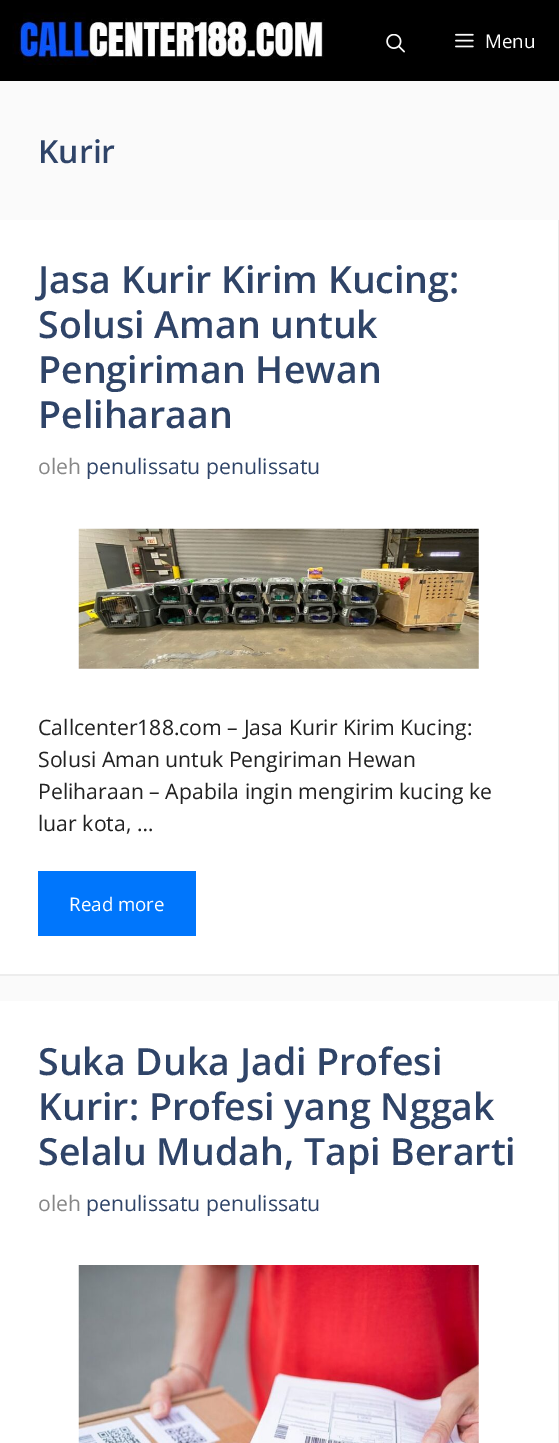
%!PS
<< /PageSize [559 1443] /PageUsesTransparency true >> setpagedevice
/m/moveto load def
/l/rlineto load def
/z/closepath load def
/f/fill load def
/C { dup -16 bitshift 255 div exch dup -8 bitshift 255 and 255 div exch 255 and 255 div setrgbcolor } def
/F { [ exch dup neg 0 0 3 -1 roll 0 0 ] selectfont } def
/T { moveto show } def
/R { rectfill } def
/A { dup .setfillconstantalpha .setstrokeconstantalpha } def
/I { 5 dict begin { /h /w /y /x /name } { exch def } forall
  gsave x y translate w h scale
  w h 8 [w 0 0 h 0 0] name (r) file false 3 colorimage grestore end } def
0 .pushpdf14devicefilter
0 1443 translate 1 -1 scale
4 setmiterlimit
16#FAFAFA C
0 0 559 1443 R
16#000000 C
0 0 559 81 R
(1.rgb) 12 12 313 53 I
(2.rgb) 386 34 19 19 I
(3.rgb) 455 33 19 15 I
/OpenSans-Regular 18.75 F
16#FFFFFF C
(Menu) 485 48 T
/OpenSans-SemiBold 32 F
16#2F4468 C
(Kurir) 38 163 T
16#FFFFFF C
0 220 559 756 R
16#EDEDED C
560 220 m 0 756 l -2 -2 l 0 -754 l z f
0.07 A
16#000000 C
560 976 m -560 0 l 0 -2 l 558 0 l z f
/OpenSans-SemiBold 37.5 F
1 A
16#2F4468 C
(Jasa Kurir Kirim Kucing:) 38 293 T
(Solusi Aman untuk) 38 338 T
(Pengiriman Hewan) 38 383 T
(Peliharaan) 38 428 T
/OpenSans-Regular 21.25 F
16#878787 C
(oleh) 38 474 T
16#2F4468 C
(penulissatu penulissatu) 86 474 T
(4.rgb) 78 528 401 141 I
16#212121 C
(Callcenter188.com – Jasa Kurir Kirim Kucing:) 38 735 T
(Solusi Aman untuk Pengiriman Hewan) 38 767 T
(Peliharaan – Apabila ingin mengirim kucing ke) 38 799 T
(luar kota, …) 38 831 T
16#0076FC C
38 871 158 65 R
/OpenSans-Regular 18.75 F
16#FFFFFF C
(Read more) 69 911 T
0 1001 558 442 R
16#EDEDED C
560 1001 m 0 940 l -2 -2 l 0 -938 l z f
/OpenSans-SemiBold 37.5 F
16#2F4468 C
(Suka Duka Jadi Profesi) 38 1075 T
(Kurir: Profesi yang Nggak) 38 1120 T
(Selalu Mudah, Tapi Berarti) 38 1165 T
/OpenSans-Regular 21.25 F
16#878787 C
(oleh) 38 1211 T
16#2F4468 C
(penulissatu penulissatu) 86 1211 T
(5.rgb) 78 1265 401 178 I
.poppdf14devicefilter showpage
